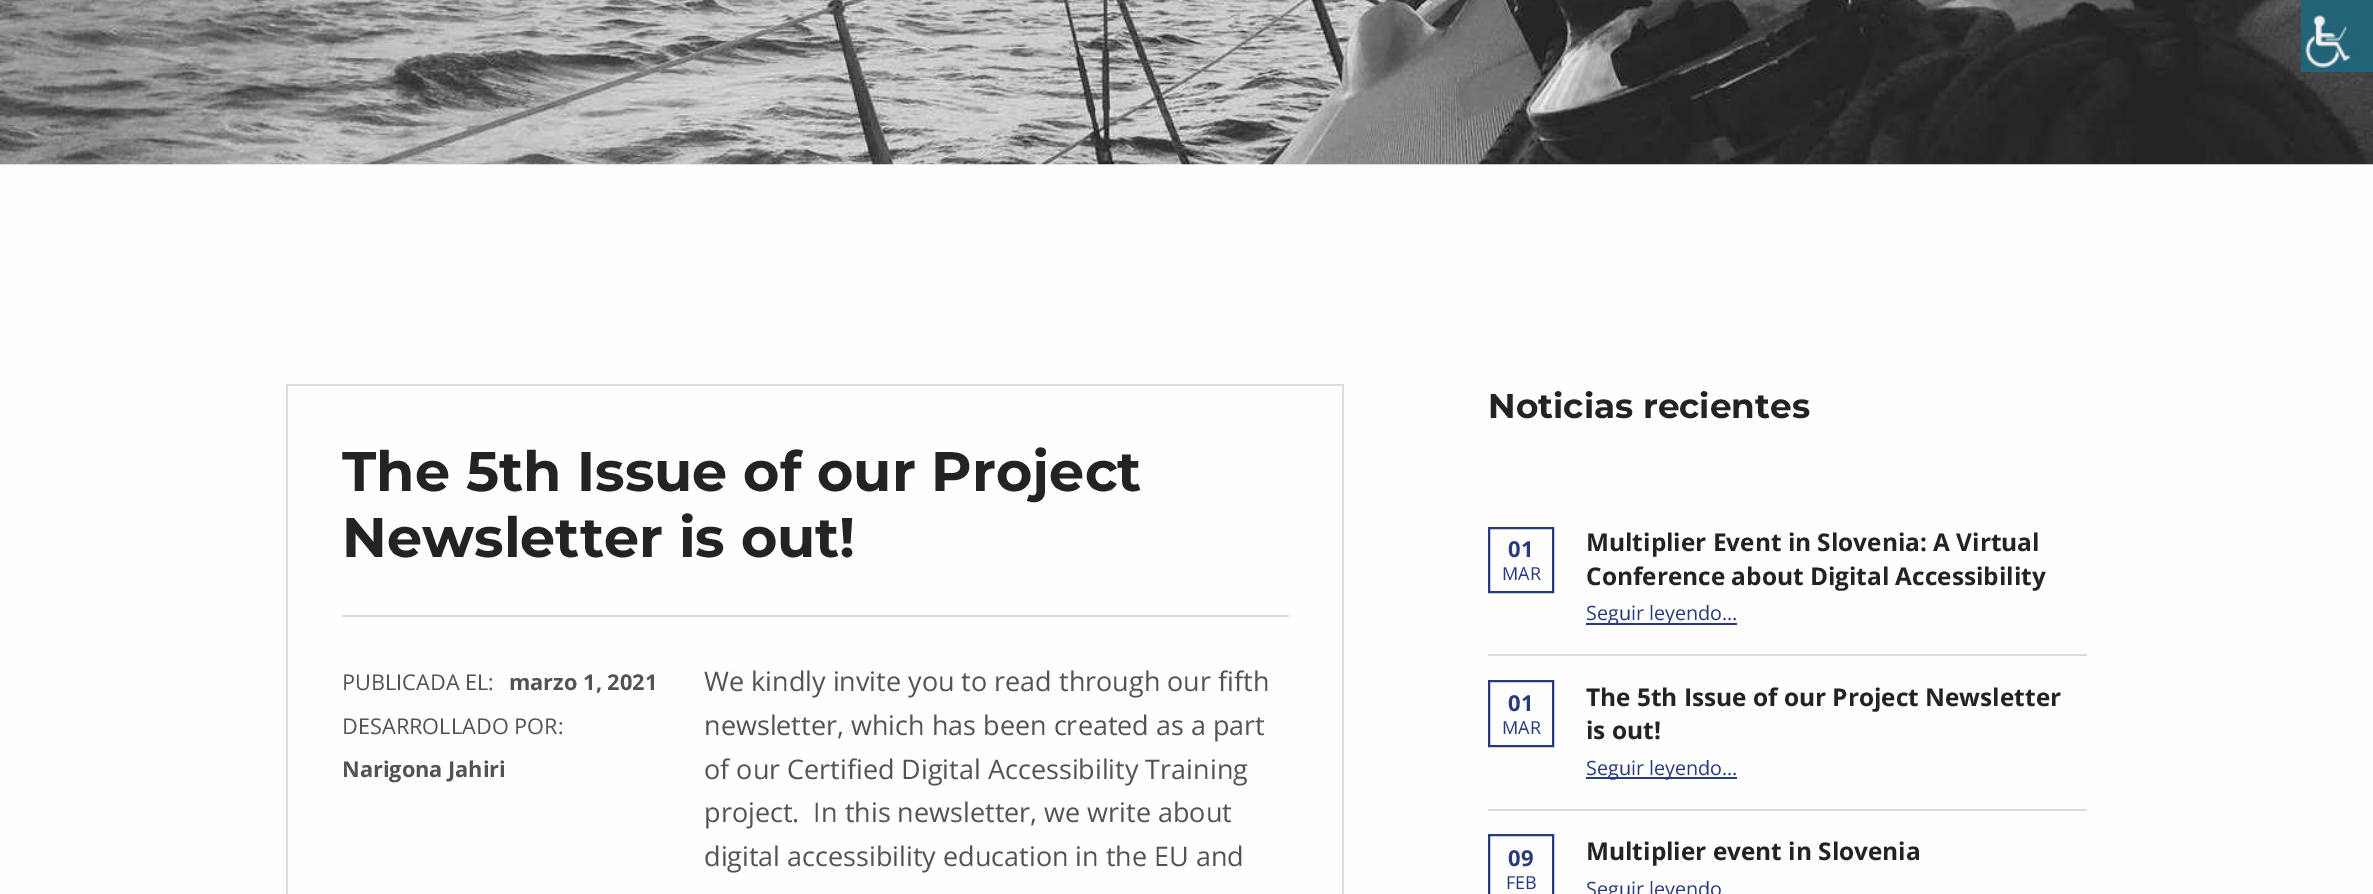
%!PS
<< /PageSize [2373 894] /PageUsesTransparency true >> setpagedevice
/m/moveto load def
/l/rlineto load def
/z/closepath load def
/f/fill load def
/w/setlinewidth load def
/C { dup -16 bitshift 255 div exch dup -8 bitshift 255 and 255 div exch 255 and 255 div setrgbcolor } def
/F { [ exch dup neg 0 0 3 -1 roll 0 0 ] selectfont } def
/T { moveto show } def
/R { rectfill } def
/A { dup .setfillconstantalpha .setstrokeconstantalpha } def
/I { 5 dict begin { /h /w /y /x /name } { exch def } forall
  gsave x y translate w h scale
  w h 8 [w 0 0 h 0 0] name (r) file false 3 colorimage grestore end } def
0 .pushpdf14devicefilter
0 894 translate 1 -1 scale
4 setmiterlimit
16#FEFEFF C
0 0 2373 894 R
16#FAFAFB C
0 164 2373 1 R
(2.rgb) 0 0 2373 165 I
(1.rgb) 2301 0 72 72 I
16#DCDCDD C
286 384 m 1058 0 l -2 2 l -1054 0 l z f
0.2 A
16#535354 C
1344 384 m 0 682 l -2 -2 l 0 -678 l z f
286 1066 m 0 -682 l 2 2 l 0 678 l z f
1 A
16#DCDCDD C
342 615 947 2 R
/Montserrat-Bold 55.6 F
16#232324 C
(The 5th Issue of our Project) 342 491 T
(Newsletter is out!) 342 557 T
/OpenSans-Regular 21.75 F
16#535354 C
(PUBLICADA EL:) 342 690 T
/OpenSans-Bold 21.75 F
(marzo 1, 2021) 509 690 T
/OpenSans-Regular 21.75 F
(DESARROLLADO POR:) 342 734 T
/OpenSans-Bold 21.75 F
(Narigona Jahiri) 342 777 T
/OpenSans-Regular 27 F
(We kindly invite you to read through our fifth) 704 691 T
(newsletter, which has been created as a part) 704 735 T
(of our Certified Digital Accessibility Training) 704 779 T
(project.  In this newsletter, we write about) 704 822 T
(digital accessibility education in the EU and) 704 866 T
/Montserrat-Bold 34.25 F
16#232324 C
(Noticias recientes) 1488 418 T
16#273A7D C
2 w
1489 528 64 64 rectstroke
/OpenSans-Bold 22 F
(01) 1508 557 T
/OpenSans-Regular 18 F
(MAR) 1502 580 T
/OpenSans-Bold 24.4 F
16#232324 C
(Multiplier Event in Slovenia: A Virtual) 1586 551 T
(Conference about Digital Accessibility) 1586 585 T
16#273A7D C
1586 623 151 2 R
/OpenSans-Regular 19.75 F
(Seguir leyendo…) 1586 620 T
16#DCDCDD C
1488 654 599 2 R
16#273A7D C
1489 681 64 65 rectstroke
/OpenSans-Bold 22 F
(01) 1508 711 T
/OpenSans-Regular 18 F
(MAR) 1502 734 T
/OpenSans-Bold 24.4 F
16#232324 C
(The 5th Issue of our Project Newsletter) 1586 706 T
(is out!) 1586 739 T
16#273A7D C
1586 777 151 2 R
/OpenSans-Regular 19.75 F
(Seguir leyendo…) 1586 775 T
16#DCDCDD C
1488 809 599 2 R
16#273A7D C
1489 835 64 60 rectstroke
/OpenSans-Bold 22 F
(09) 1508 866 T
/OpenSans-Regular 18 F
(FEB) 1506 889 T
/OpenSans-Bold 24.4 F
16#232324 C
(Multiplier event in Slovenia) 1586 860 T
/OpenSans-Regular 19.75 F
16#273A7D C
(Seguir leyendo) 1586 896 T
.poppdf14devicefilter showpage
